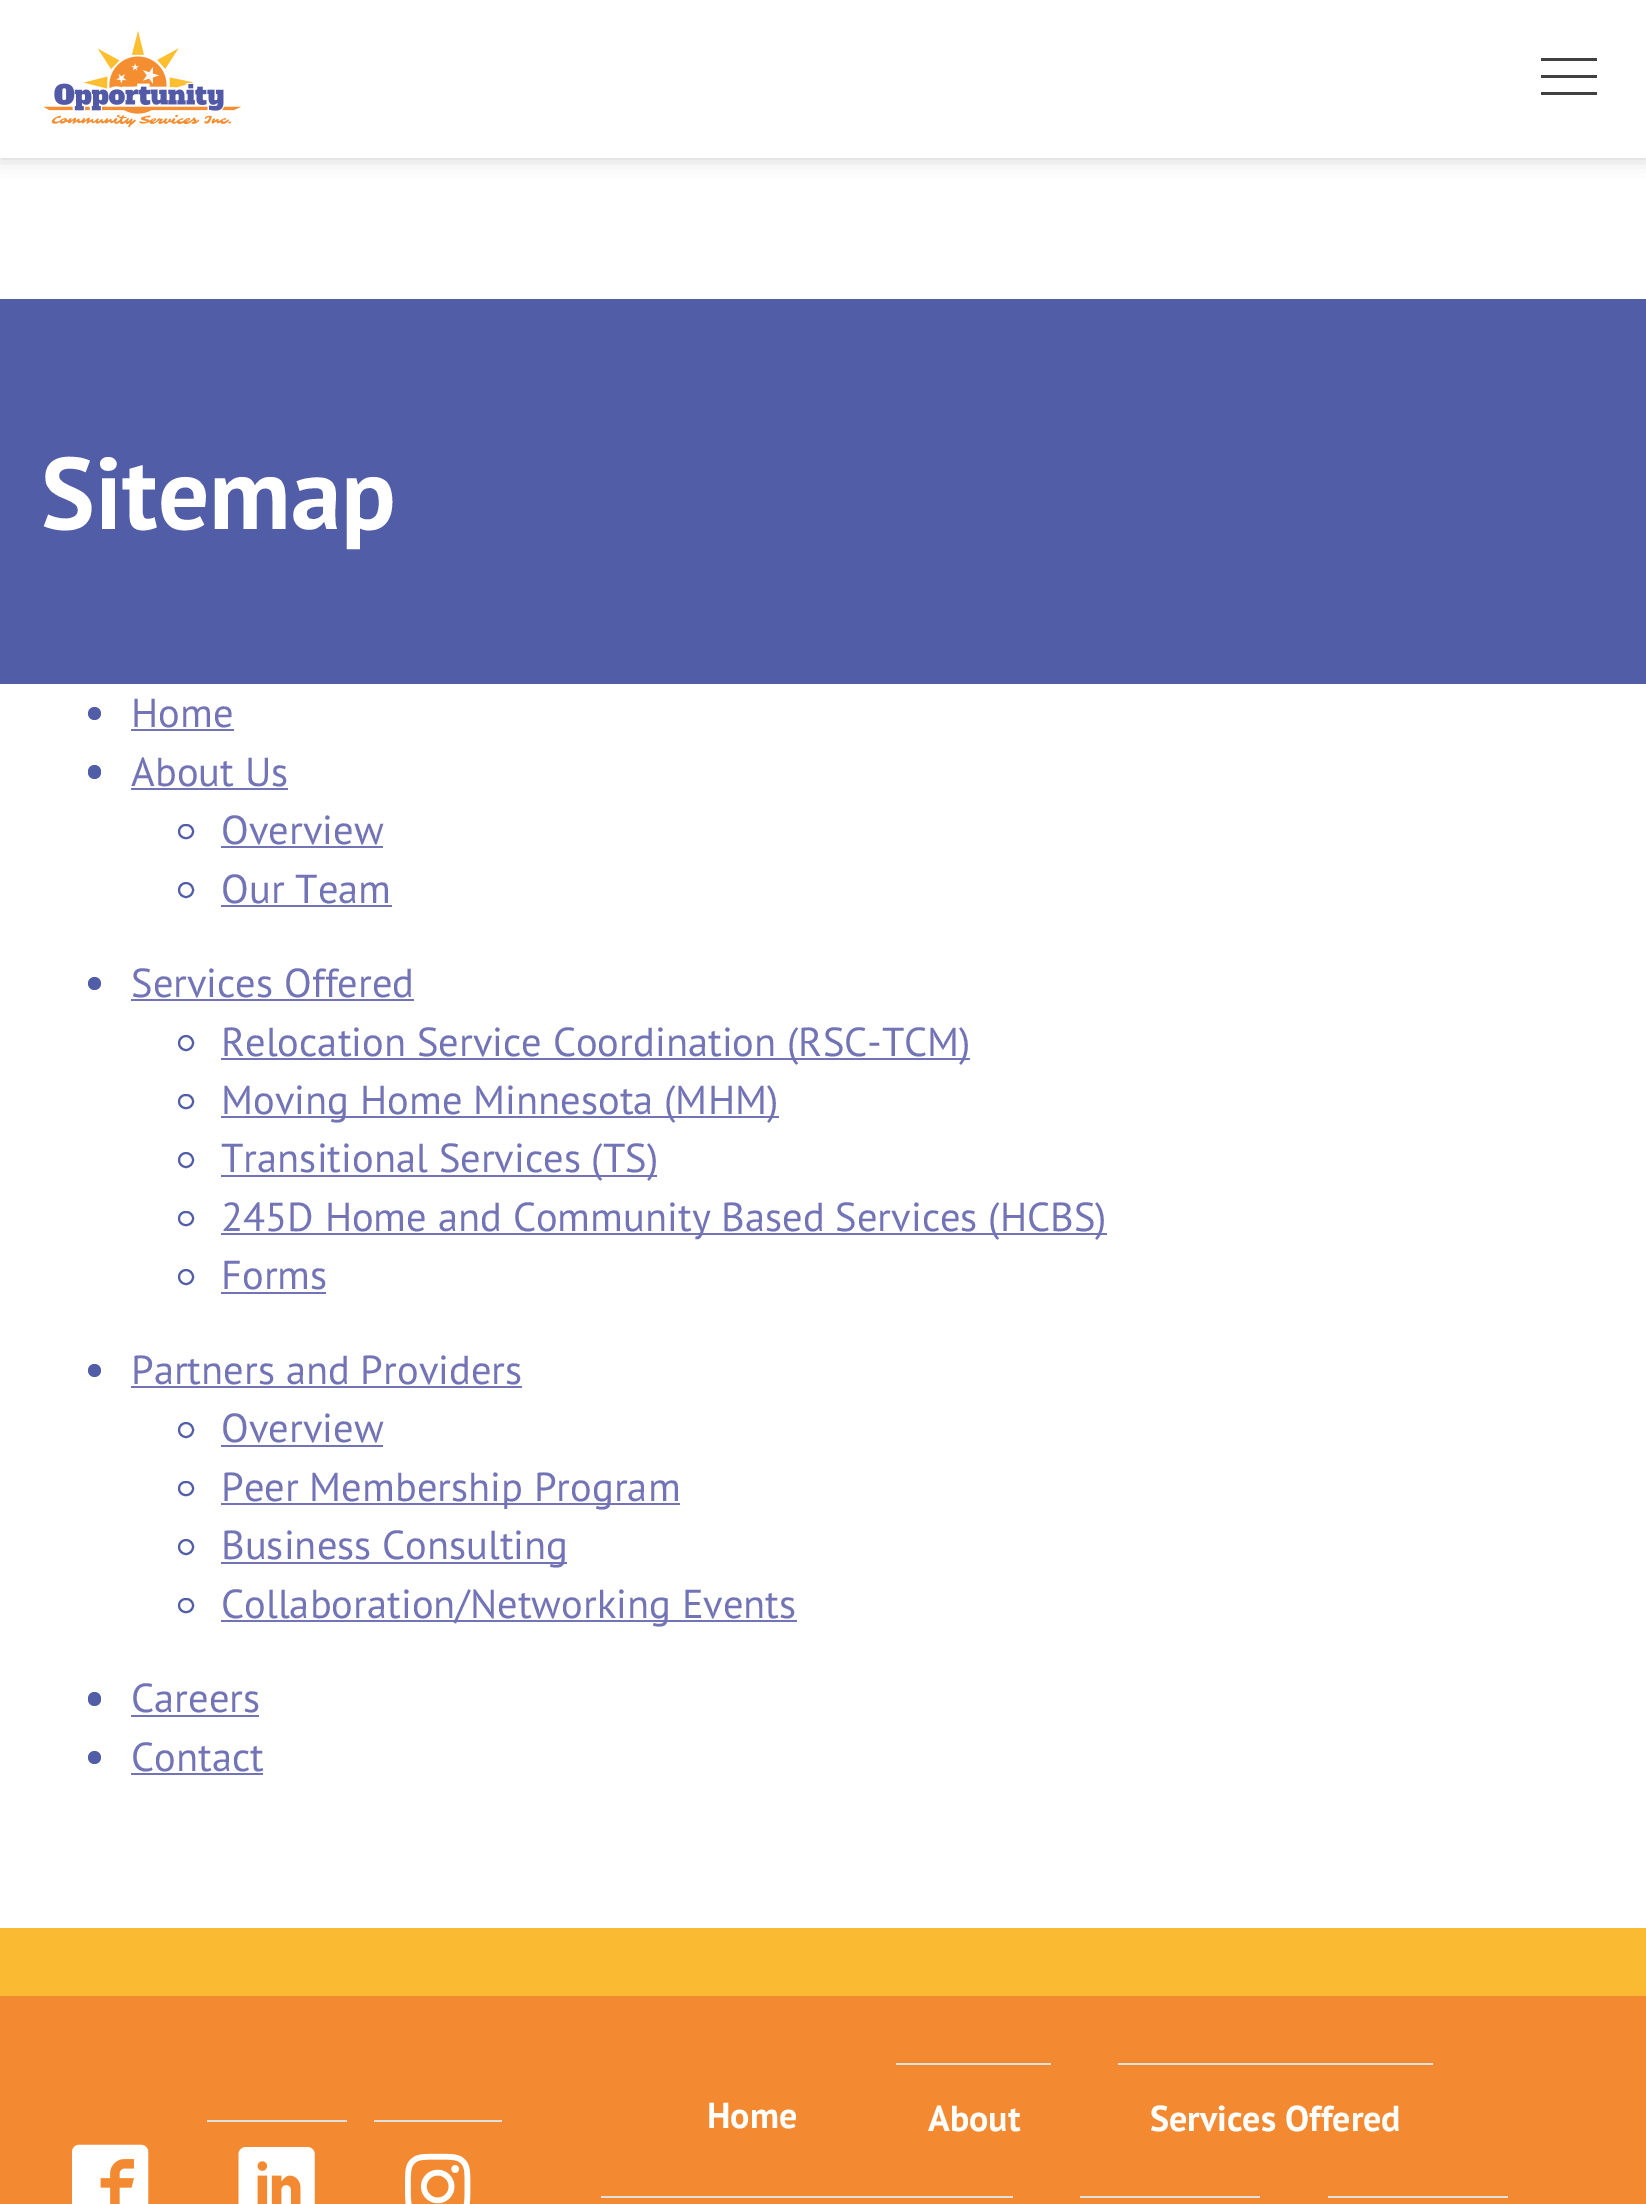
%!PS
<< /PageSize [1646 2204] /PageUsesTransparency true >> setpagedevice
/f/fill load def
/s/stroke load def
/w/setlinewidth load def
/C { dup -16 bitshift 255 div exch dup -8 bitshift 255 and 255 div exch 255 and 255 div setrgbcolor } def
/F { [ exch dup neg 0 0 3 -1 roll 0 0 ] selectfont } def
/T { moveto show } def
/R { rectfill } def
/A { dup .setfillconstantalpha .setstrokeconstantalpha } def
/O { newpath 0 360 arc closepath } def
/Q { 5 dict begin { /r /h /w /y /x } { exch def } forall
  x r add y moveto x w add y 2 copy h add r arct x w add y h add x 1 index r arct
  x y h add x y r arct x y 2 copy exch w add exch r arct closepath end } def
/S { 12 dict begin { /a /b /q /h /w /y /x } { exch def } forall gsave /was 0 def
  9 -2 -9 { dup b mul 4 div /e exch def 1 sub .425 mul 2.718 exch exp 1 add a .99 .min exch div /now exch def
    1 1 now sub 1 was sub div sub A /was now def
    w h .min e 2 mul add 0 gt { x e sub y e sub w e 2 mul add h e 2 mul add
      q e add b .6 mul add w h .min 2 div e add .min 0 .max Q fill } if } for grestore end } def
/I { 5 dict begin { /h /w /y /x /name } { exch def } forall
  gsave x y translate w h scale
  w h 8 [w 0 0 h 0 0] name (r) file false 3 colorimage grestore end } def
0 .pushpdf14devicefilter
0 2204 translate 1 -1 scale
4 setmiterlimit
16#FFFFFF C
0 0 1646 2204 R
16#000000 C
0 0 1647 158 0 9 .1 S
0 0 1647 158 0 9 .1 S
16#FFFFFF C
0 0 1646 158 R
(1.rgb) 43 31 199 97 I
16#404040 C
1541 58 56 3 R
1541 75 56 3 R
1541 92 56 3 R
16#515DA6 C
0 299 1646 385 R
/PTSans-Bold 101.5 F
16#FFFFFF C
(Sitemap) 41 529 T
16#515DA6 C
94.5 713.5 6.5 O f
/PTSans-Regular 40.5 F
16#7374B6 C
(Home) 131 727 T
131 729 103 2 R
16#515DA6 C
88 765 13 14 6.5 Q f
16#7374B6 C
(About Us) 131 786 T
131 788 157 2 R
16#515DA6 C
2 w
179 825 14 13 6.5 Q s
16#7374B6 C
(Overview) 221 844 T
221 846 162 2 R
16#515DA6 C
186 890 7 O s
16#7374B6 C
(Our Team) 221 903 T
221 905 171 2 R
16#515DA6 C
94.5 983.5 6.5 O f
16#7374B6 C
(Services Offered) 131 997 T
131 999 283 2 R
16#515DA6 C
186 1043 7 O s
16#7374B6 C
221 1058 749 2 R
(Relocation Service Coordination \(RSC-TCM\)) 221 1056 T
16#515DA6 C
179 1095 14 13 6.5 Q s
16#7374B6 C
221 1116 558 2 R
(Moving Home Minnesota \(MHM\)) 221 1114 T
16#515DA6 C
186 1160 7 O s
16#7374B6 C
221 1175 436 2 R
(Transitional Services \(TS\)) 221 1172 T
16#515DA6 C
179 1212 14 13 6.5 Q s
16#7374B6 C
221 1233 886 2 R
(245D Home and Community Based Services \(HCBS\)) 221 1231 T
16#515DA6 C
186 1277 7 O s
16#7374B6 C
(Forms) 221 1289 T
221 1292 105 2 R
16#515DA6 C
94.5 1370.5 6.5 O f
16#7374B6 C
(Partners and Providers) 131 1384 T
131 1386 391 2 R
16#515DA6 C
186 1430 7 O s
16#7374B6 C
(Overview) 221 1442 T
221 1445 162 2 R
16#515DA6 C
179 1482 14 13 6.5 Q s
16#7374B6 C
221 1503 459 2 R
(Peer Membership Program) 221 1501 T
16#515DA6 C
186 1547 7 O s
16#7374B6 C
221 1562 346 2 R
(Business Consulting) 221 1559 T
16#515DA6 C
179 1599 14 13 6.5 Q s
16#7374B6 C
221 1620 576 2 R
(Collaboration/Networking Events) 221 1618 T
16#515DA6 C
88 1692 13 14 6.5 Q f
16#7374B6 C
(Careers) 131 1712 T
131 1715 128 2 R
16#515DA6 C
94.5 1757.5 6.5 O f
16#7374B6 C
(Contact) 131 1771 T
131 1773 132 2 R
16#F38A31 C
0 1996 1646 208 R
16#FABA31 C
0 1928 1646 68 R
/PTSans-Bold 36 F
16#FFFFFF C
(Home) 707 2128 T
16#E0DFDC C
896 2063 155 2 R
16#FFFFFF C
(About) 928 2131 T
16#E0DFDC C
1118 2063 315 2 R
16#FFFFFF C
(Services Offered) 1150 2131 T
16#E0DFDC C
601 2196 412 2 R
1080 2196 180 2 R
1328 2196 180 2 R
(2.rgb) 72 2144 77 60 I
207 2120 140 2 R
(3.rgb) 238 2147 77 57 I
374 2120 128 2 R
(4.rgb) 405 2153 66 51 I
.poppdf14devicefilter showpage
